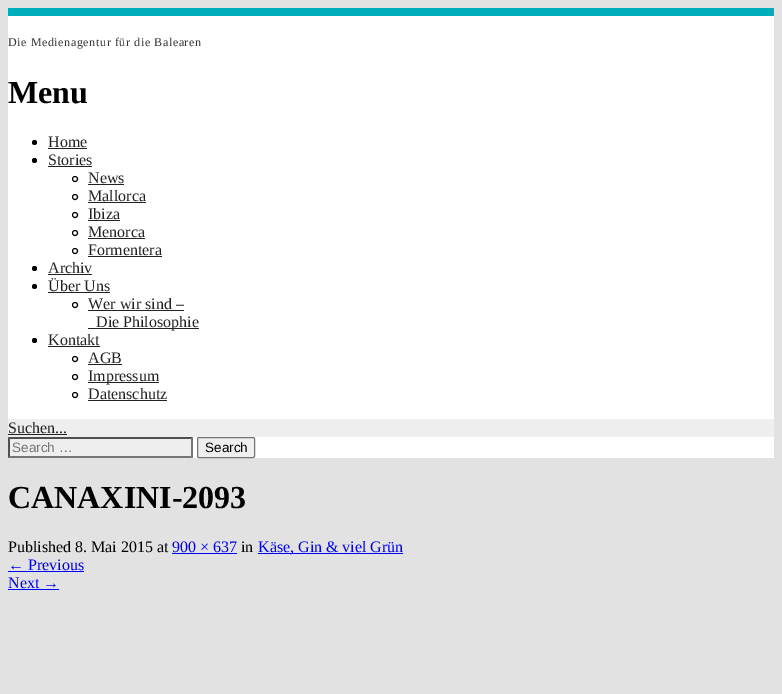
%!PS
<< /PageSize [782 694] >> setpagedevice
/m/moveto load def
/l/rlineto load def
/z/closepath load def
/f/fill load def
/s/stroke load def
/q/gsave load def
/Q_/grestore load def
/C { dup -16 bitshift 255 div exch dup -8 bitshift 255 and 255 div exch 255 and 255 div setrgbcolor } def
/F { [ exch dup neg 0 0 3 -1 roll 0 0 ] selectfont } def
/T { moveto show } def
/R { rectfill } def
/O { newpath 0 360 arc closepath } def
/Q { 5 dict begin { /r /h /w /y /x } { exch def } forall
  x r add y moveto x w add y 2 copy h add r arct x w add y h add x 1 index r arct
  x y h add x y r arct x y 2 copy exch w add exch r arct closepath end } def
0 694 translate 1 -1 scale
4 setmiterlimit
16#E2E2E2 C
0 0 782 694 R
16#00ADBB C
8 8 766 8 R
16#FFFFFF C
8 16 766 442 R
/LiberationSerif-Regular 12 F
16#333333 C
8 46 m .6 0 (Die Medienagentur für die Balearen) ashow
/LiberationSerif-Bold 32 F
16#000000 C
(Menu) 8 103 T
34.5 142.5 2.5 O f
/LiberationSerif-Regular 16 F
16#222222 C
(Home) 48 147 T
48 148 39 1 R
16#000000 C
34.5 160.5 2.5 O f
16#222222 C
(Stories) 48 165 T
48 166 44 1 R
16#000000 C
75 179 2.5 O s
16#222222 C
(News) 88 183 T
88 184 36 1 R
16#000000 C
75 197 2.5 O s
16#222222 C
(Mallorca) 88 201 T
88 202 58 1 R
16#000000 C
75 215 2.5 O s
16#222222 C
(Ibiza) 88 219 T
88 220 32 1 R
16#000000 C
75 233 2.5 O s
16#222222 C
(Menorca) 88 237 T
88 238 57 1 R
16#000000 C
75 251 2.5 O s
16#222222 C
(Formentera) 88 255 T
88 256 74 1 R
16#000000 C
34.5 268.5 2.5 O f
16#222222 C
(Archiv) 48 273 T
48 274 44 1 R
16#000000 C
34.5 286.5 2.5 O f
16#222222 C
(Über Uns) 48 291 T
48 292 62 1 R
16#000000 C
75 305 2.5 O s
16#222222 C
(Wer wir sind –) 88 309 T
88 310 96 1 R
88 328 111 1 R
(Die Philosophie) 96 327 T
16#000000 C
34.5 340.5 2.5 O f
16#222222 C
(Kontakt) 48 345 T
48 346 52 1 R
16#000000 C
75 359 2.5 O s
16#222222 C
(AGB) 88 363 T
88 364 34 1 R
16#000000 C
75 377 2.5 O s
16#222222 C
88 382 71 1 R
(Impressum) 88 381 T
16#000000 C
75 395 2.5 O s
16#222222 C
(Datenschutz) 88 399 T
88 400 79 1 R
16#EEEEEE C
8 419 766 18 R
16#222222 C
(Suchen...) 8 433 T
8 434 59 1 R
16#EEEEEE C
8 437 185 21 R
16#4F4F4F C
8 437 m 185 0 l -2 2 l -181 0 l z f
16#767676 C
193 437 m 0 21 l -2 -2 l 0 -17 l z f
193 458 m -185 0 l 2 -2 l 181 0 l z f
16#4F4F4F C
8 458 m 0 -21 l 2 2 l 0 17 l z f
/LiberationSans-Regular 13.5 F
16#757575 C
(Search …) 12 452 T
16#EFEFEF C
197.5 437.5 57 20 1.5 Q q f Q_
16#767676 C
s
16#000000 C
(Search) 205 452 T
/LiberationSerif-Bold 32 F
(CANAXINI-2093) 8 508 T
/LiberationSerif-Regular 16 F
(Published 8. Mai 2015 at) 8 552 T
16#0000EE C
(900 × 637) 172 552 T
172 553 65 1 R
16#000000 C
(in) 241 552 T
16#0000EE C
258 553 145 1 R
(Käse, Gin & viel Grün) 258 552 T
(← Previous) 8 570 T
8 571 76 1 R
(Next →) 8 588 T
8 589 51 1 R
showpage
